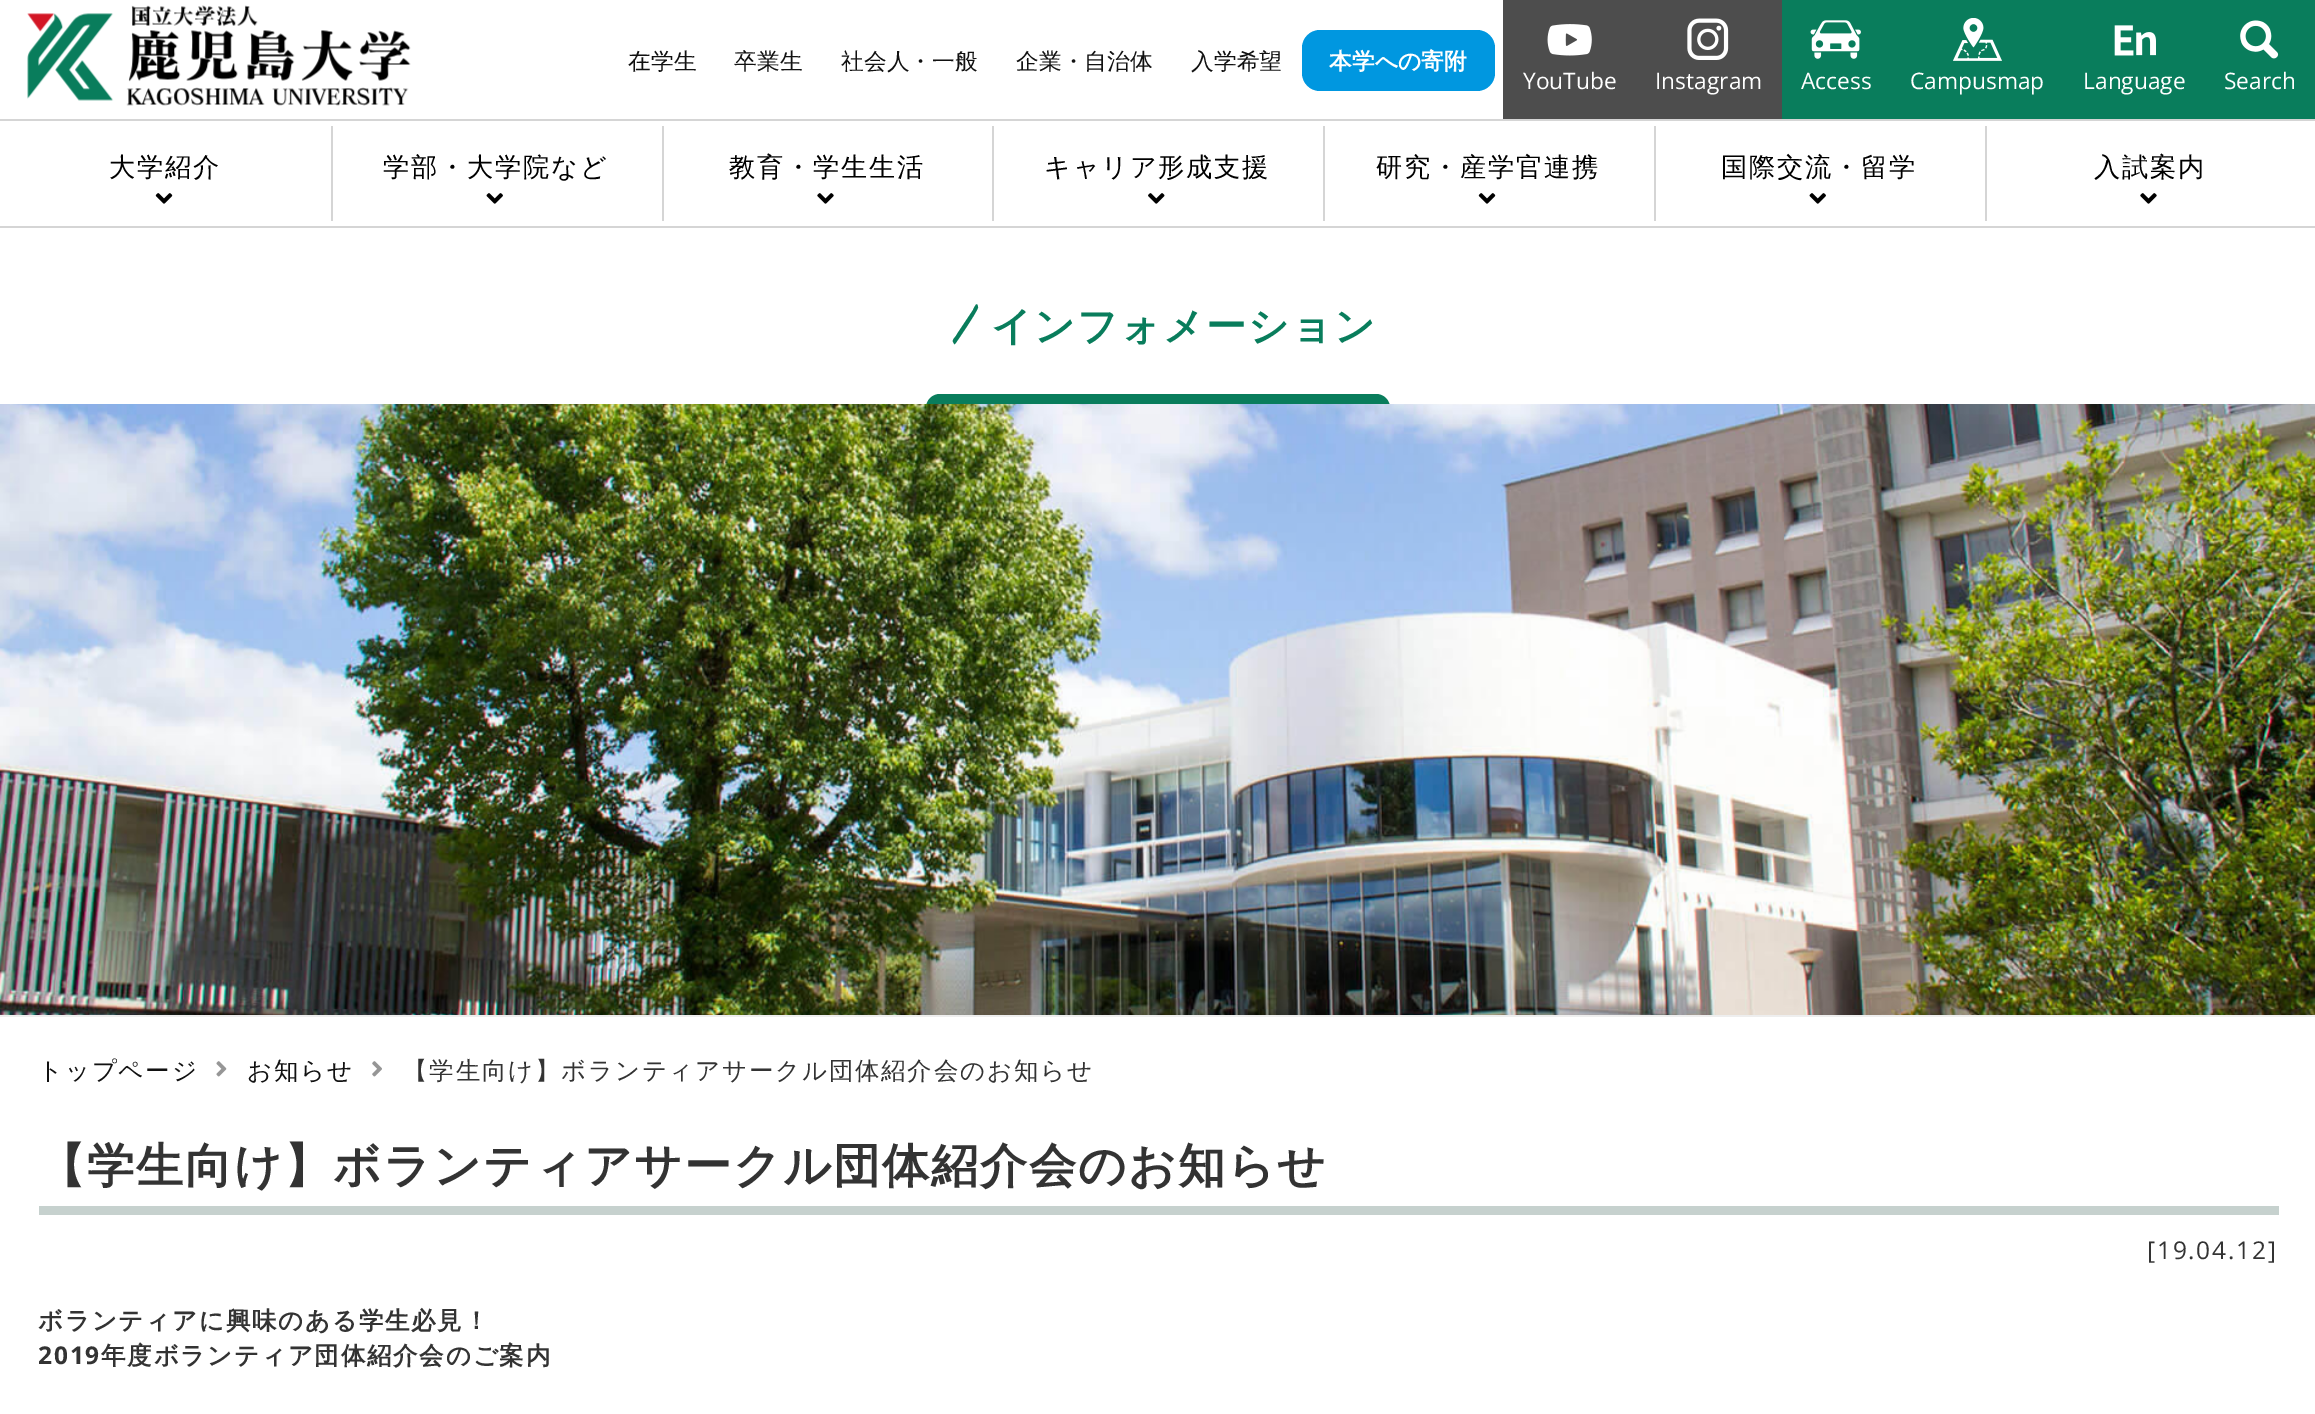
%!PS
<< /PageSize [2315 1414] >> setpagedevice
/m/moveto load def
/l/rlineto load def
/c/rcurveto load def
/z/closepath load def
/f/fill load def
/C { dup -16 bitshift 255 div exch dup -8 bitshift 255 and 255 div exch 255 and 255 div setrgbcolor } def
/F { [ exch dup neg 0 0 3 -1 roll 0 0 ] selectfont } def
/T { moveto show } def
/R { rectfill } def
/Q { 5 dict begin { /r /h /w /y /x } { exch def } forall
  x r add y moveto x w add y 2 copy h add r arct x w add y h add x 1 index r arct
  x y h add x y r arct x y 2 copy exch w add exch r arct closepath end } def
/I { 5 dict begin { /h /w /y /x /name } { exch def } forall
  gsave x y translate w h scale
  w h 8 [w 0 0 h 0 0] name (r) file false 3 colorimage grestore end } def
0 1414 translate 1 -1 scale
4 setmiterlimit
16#FFFFFF C
0 0 2315 1414 R
(1.rgb) 27 5 384 101 I
/WenQuanYiZenHei-Medium 22.75 F
16#111111 C
(在学生) 628 69 T
(卒業生) 734 69 T
(社会人・一般) 841 69 T
(企業・自治体) 1016 69 T
(入学希望) 1191 69 T
16#0097E0 C
1302 30 193 61 18 Q f
/WenQuanYiZenHei-Bold 22.75 F
16#FFFFFF C
(本学への寄附) 1329 69 T
16#4D4D4D C
1503 0 279 119 R
(2.rgb) 1547 24 45 32 I
/OpenSans-Regular 22.75 F
16#FFFFFF C
(YouTube) 1523 89 T
(3.rgb) 1687 18 42 42 I
(Instagram) 1655 89 T
16#097D5C C
1782 0 533 119 R
(4.rgb) 1810 20 51 39 I
16#FFFFFF C
(Access) 1801 89 T
(5.rgb) 1953 18 49 43 I
(Campusmap) 1910 89 T
(6.rgb) 2114 25 42 31 I
(Language) 2083 89 T
(7.rgb) 2240 20 39 39 I
(Search) 2224 89 T
16#D5D5D5 C
0 119 2315 2 R
0 226 2315 2 R
/WenQuanYiZenHei-Medium 26.25 F
16#000000 C
109 176 m 1.75 0 (大学紹介) ashow
(8.rgb) 155 193 18 11 I
16#D5D5D5 C
331 126 2 95 R
16#000000 C
383 176 m 1.75 0 (学部・大学院など) ashow
(9.rgb) 486 193 17 11 I
16#D5D5D5 C
662 126 2 95 R
16#000000 C
729 176 m 1.75 0 (教育・学生生活) ashow
(10.rgb) 817 193 17 11 I
16#D5D5D5 C
992 126 2 95 R
16#000000 C
1044 176 m 1.75 0 (キャリア形成支援) ashow
(11.rgb) 1148 193 17 11 I
16#D5D5D5 C
1323 126 2 95 R
16#000000 C
1376 176 m 1.75 0 (研究・産学官連携) ashow
(8.rgb) 1478 193 18 11 I
16#D5D5D5 C
1654 126 2 95 R
16#000000 C
1721 176 m 1.75 0 (国際交流・留学) ashow
(9.rgb) 1809 193 17 11 I
16#D5D5D5 C
1985 126 2 95 R
16#000000 C
2094 176 m 1.75 0 (入試案内) ashow
(10.rgb) 2140 193 17 11 I
16#097D5C C
926 394 464 28 14 Q f
(12.rgb) 0 404 2315 611 I
16#EEEEEE C
0 1015 2315 2 R
16#097D5C C
955 344 m 3 -4 24 -35 23 -37 c -1 -6 -3 -1 -5 3 c -16 24 l -1 3 -5 5 -4 8 c 1 1 1 3 2 2 c z f
/WenQuanYiZenHei-Bold 40.25 F
991 340 m 1.75 0 (インフォメーション) ashow
/WenQuanYiZenHei-Medium 24.5 F
16#111111 C
38 1079 m 1.75 0 (トップページ) ashow
(13.rgb) 216 1061 11 16 I
247 1079 m 1.75 0 (お知らせ) ashow
(14.rgb) 372 1061 10 16 I
16#333333 C
403 1079 m 1.75 0 (【学生向け】ボランティアサークル団体紹介会のお知らせ) ashow
16#C6D1CE C
39 1206 2240 9 R
/WenQuanYiZenHei-Bold 47.25 F
16#333333 C
38 1182 m 1.75 0 (【学生向け】ボランティアサークル団体紹介会のお知らせ) ashow
/OpenSans-Regular 24.5 F
2147 1259 m 1.75 0 ([19.04.12]) ashow
/WenQuanYiZenHei-Bold 24.5 F
38 1329 m 1.75 0 (ボランティアに興味のある学生必見！) ashow
/OpenSans-Bold 24.5 F
38 1364 m 1.75 0 (2019) ashow
/WenQuanYiZenHei-Bold 24.5 F
101 1364 m 1.75 0 (年度ボランティア団体紹介会のご案内) ashow
showpage
